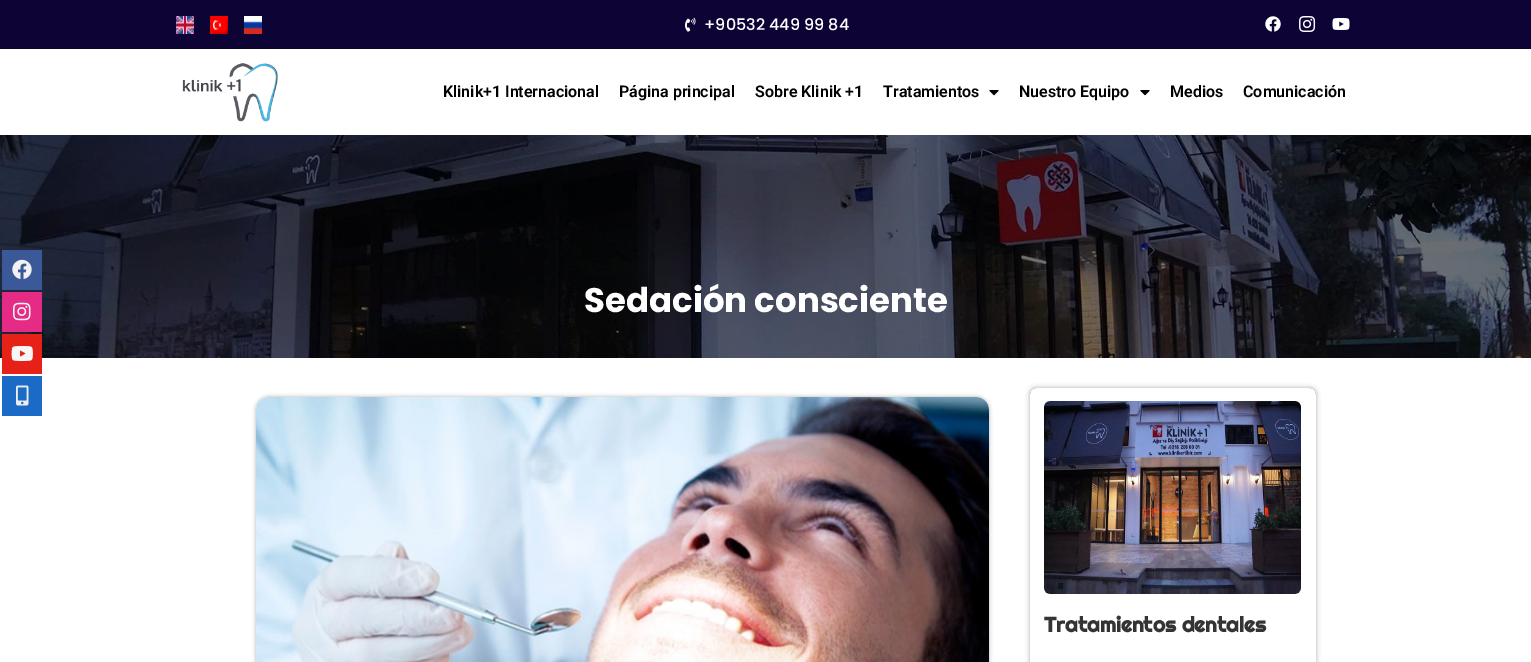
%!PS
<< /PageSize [1531 662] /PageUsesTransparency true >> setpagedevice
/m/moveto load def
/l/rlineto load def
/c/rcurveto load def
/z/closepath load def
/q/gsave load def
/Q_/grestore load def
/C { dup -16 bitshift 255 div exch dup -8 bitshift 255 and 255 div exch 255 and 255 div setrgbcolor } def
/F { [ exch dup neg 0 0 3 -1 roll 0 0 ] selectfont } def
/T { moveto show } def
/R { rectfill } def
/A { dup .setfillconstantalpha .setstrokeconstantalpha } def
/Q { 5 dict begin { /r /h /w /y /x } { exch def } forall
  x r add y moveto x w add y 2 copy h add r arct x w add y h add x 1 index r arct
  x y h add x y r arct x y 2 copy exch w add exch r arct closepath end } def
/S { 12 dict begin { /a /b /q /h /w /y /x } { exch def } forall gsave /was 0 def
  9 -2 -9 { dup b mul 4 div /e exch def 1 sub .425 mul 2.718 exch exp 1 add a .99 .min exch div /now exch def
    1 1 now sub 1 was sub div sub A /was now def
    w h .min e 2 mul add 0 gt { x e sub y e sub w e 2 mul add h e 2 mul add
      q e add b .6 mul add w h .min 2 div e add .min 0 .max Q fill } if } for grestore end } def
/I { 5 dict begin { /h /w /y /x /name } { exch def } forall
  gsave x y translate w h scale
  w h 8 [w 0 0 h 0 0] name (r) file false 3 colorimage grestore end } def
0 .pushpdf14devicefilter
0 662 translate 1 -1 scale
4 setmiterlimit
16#FFFFFF C
0 0 1531 662 R
16#0E0335 C
0 0 1531 49 R
(1.rgb) 176 16 18 18 I
(2.rgb) 210 16 18 18 I
(3.rgb) 244 16 18 18 I
(4.rgb) 685 17 11 15 I
/Poppins-Medium 16 F
16#FFFFFF C
(+90532 449 99 84) 704 30 T
(5.rgb) 1265 16 16 16 I
(6.rgb) 1299 16 17 16 I
(7.rgb) 1332 18 18 12 I
16#000000 C
0 49 1531 86 0 1.5 .5 S
16#FFFFFF C
0 49 1531 86 R
(8.rgb) 182 63 96 59 I
/Roboto-SemiBold 16 F
16#000000 C
(Klinik+1 Internacional) 443 97 T
(Página principal) 619 97 T
(Sobre Klinik +1) 755 97 T
(Tratamientos) 883 97 T
(9.rgb) 989 90 10 6 I
(Nuestro Equipo) 1019 97 T
(9.rgb) 1140 90 10 6 I
(Medios) 1170 97 T
(Comunicación) 1243 97 T
(14.rgb) 0 135 1531 223 I
16#3B5998 C
2 250 40 40 R
(10.rgb) 12 259 20 20 I
16#E52B85 C
2 292 40 40 R
(11.rgb) 13 302 18 19 I
16#E62117 C
2 334 40 40 R
(12.rgb) 11 346 22 15 I
16#1B6BC6 C
2 376 40 40 R
(13.rgb) 16 385 13 21 I
/Poppins-Bold 34 F
16#FFFFFF C
(Sedación consciente) 584 312 T
16#000000 C
256 397 733 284 13 2 .31 S
(15.rgb) 256 397 733 265 I
q
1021 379 m 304 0 l 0 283 l -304 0 l z 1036 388 m 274 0 l 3.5 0 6 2.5 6 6 c 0 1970 l 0 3.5 -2.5 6 -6 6 c -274 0 l -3.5 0 -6 -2.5 -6 -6 c 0 -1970 l 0 -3.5 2.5 -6 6 -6 c z eoclip newpath
1030 388 286 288 6 2.5 .32 S
Q_
(16.rgb) 1044 401 257 193 I
/Righteous-Bold 21 F
16#343435 C
(Tratamientos dentales) 1044 632 T
.poppdf14devicefilter showpage
